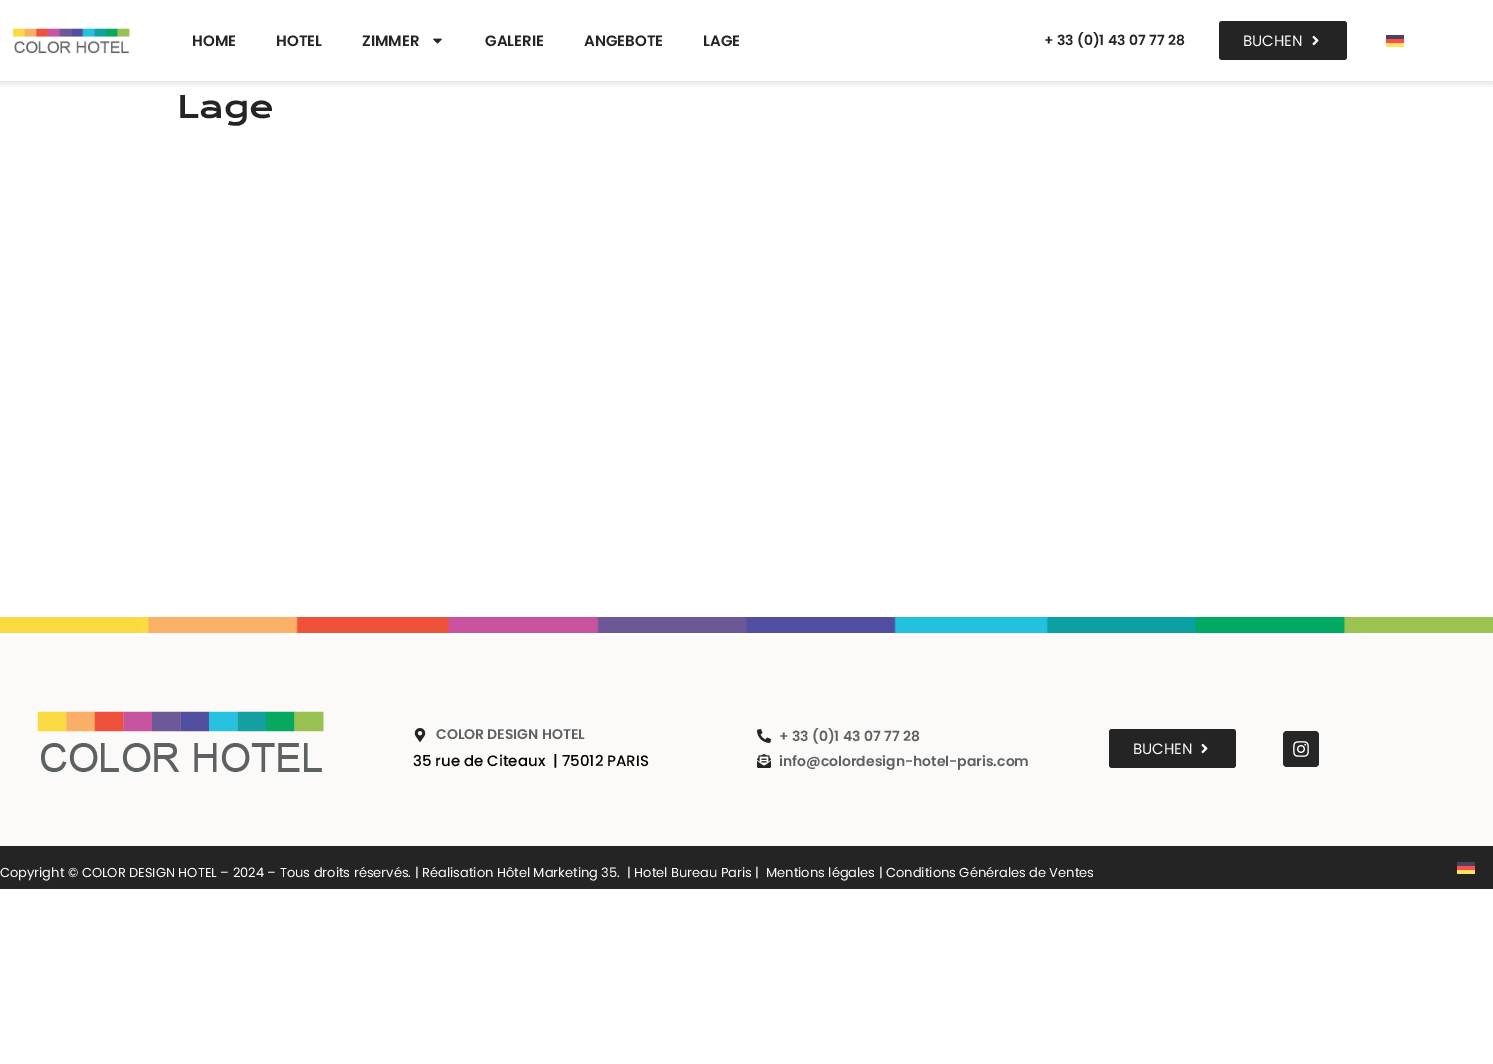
%!PS
<< /PageSize [1493 1064] /PageUsesTransparency true >> setpagedevice
/f/fill load def
/q/gsave load def
/Q_/grestore load def
/C { dup -16 bitshift 255 div exch dup -8 bitshift 255 and 255 div exch 255 and 255 div setrgbcolor } def
/F { [ exch dup neg 0 0 3 -1 roll 0 0 ] selectfont } def
/T { moveto show } def
/R { rectfill } def
/A { dup .setfillconstantalpha .setstrokeconstantalpha } def
/Q { 5 dict begin { /r /h /w /y /x } { exch def } forall
  x r add y moveto x w add y 2 copy h add r arct x w add y h add x 1 index r arct
  x y h add x y r arct x y 2 copy exch w add exch r arct closepath end } def
/S { 12 dict begin { /a /b /q /h /w /y /x } { exch def } forall gsave /was 0 def
  9 -2 -9 { dup b mul 4 div /e exch def 1 sub .425 mul 2.718 exch exp 1 add a .99 .min exch div /now exch def
    1 1 now sub 1 was sub div sub A /was now def
    w h .min e 2 mul add 0 gt { x e sub y e sub w e 2 mul add h e 2 mul add
      q e add b .6 mul add w h .min 2 div e add .min 0 .max Q fill } if } for grestore end } def
/I { 5 dict begin { /h /w /y /x /name } { exch def } forall
  gsave x y translate w h scale
  w h 8 [w 0 0 h 0 0] name (r) file false 3 colorimage grestore end } def
0 .pushpdf14devicefilter
0 1064 translate 1 -1 scale
4 setmiterlimit
16#FFFFFF C
0 0 1493 1064 R
q
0 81 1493 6 rectclip
16#000000 C
0 0 1493 81 0 5 .2 S
Q_
(1.rgb) 12 28 118 26 I
/Poppins-SemiBold 15 F
16#242424 C
(HOME) 192 46 T
(HOTEL) 276 46 T
(ZIMMER) 362 46 T
(2.rgb) 433 38 9 6 I
(GALERIE) 485 46 T
(ANGEBOTE) 584 46 T
(LAGE) 703 46 T
/Poppins-SemiBold 14 F
(+ 33 \(0\)1 43 07 77 28) 1044 45 T
1219 21 128 39 3 Q f
/Poppins-Regular 15 F
16#FFFFFF C
(BUCHEN) 1243 46 T
(3.rgb) 1312 35 7 11 I
16#FF4B55 C
1386 39 18 4 R
16#FFE15A C
1386 43 18 4 R
16#464655 C
1386 35 18 4 R
/KronaOne-Regular 30 F
16#242424 C
(Lage) 177 118 T
(4.rgb) 0 617 1493 16 I
16#FCFAF8 C
0 636 1493 210 R
(5.rgb) 37 711 287 61 I
(6.rgb) 414 728 12 14 I
/Poppins-SemiBold 14 F
16#5D6162 C
(COLOR DESIGN HOTEL) 436 739 T
/Poppins-Medium 15 F
16#000000 C
(35 rue de Citeaux  | 75012 PARIS) 413 766 T
(7.rgb) 757 729 14 14 I
/Poppins-SemiBold 14 F
16#5D6162 C
(+ 33 \(0\)1 43 07 77 28) 779 741 T
(8.rgb) 757 754 14 14 I
(info@colordesign-hotel-paris.com) 779 766 T
16#242424 C
1109 729 127 39 3 Q f
/Poppins-Regular 15 F
16#FFFFFF C
(BUCHEN) 1133 754 T
(3.rgb) 1201 743 7 11 I
16#262626 C
1283 731 36 36 4 Q f
(9.rgb) 1293 741 16 16 I
16#242424 C
0 846 1493 43 R
/Poppins-Regular 13 F
16#FFFFFF C
(Copyright © COLOR DESIGN HOTEL – 2024 – Tous droits réservés. | Réalisation Hôtel Marketing 35.  | Hotel Bureau Paris |) 0 877 T
(Mentions légales | Conditions Générales de Ventes) 766 877 T
16#464655 C
1457 862 18 4 R
16#FF4B55 C
1457 866 18 4 R
16#FFE15A C
1457 870 18 4 R
.poppdf14devicefilter showpage
